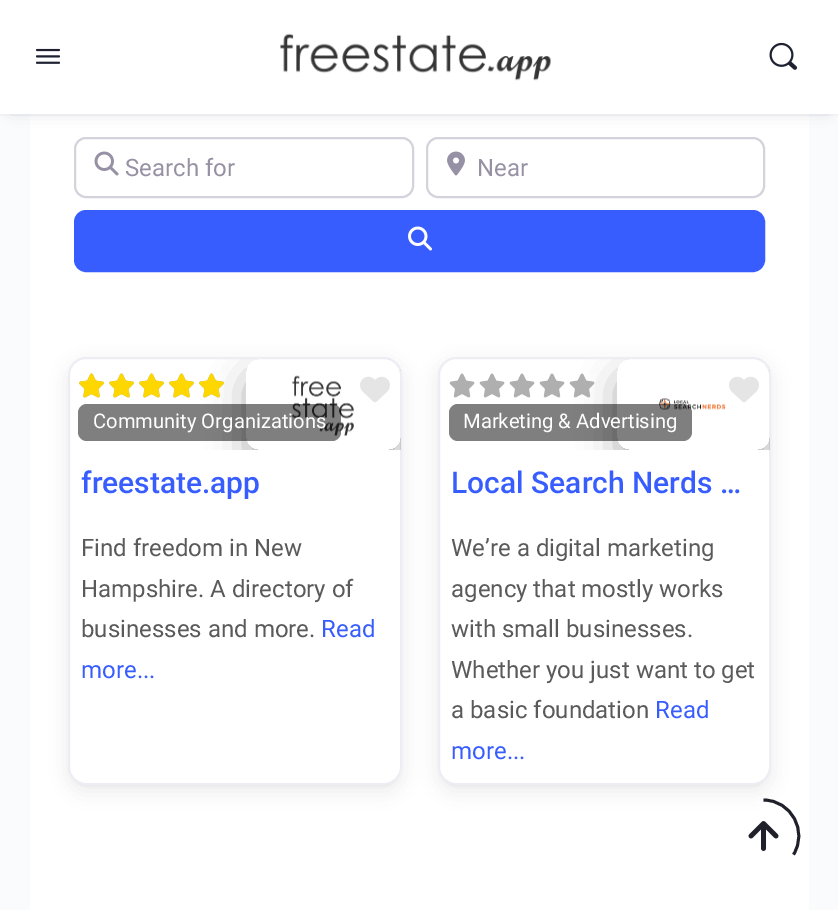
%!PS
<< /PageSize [838 910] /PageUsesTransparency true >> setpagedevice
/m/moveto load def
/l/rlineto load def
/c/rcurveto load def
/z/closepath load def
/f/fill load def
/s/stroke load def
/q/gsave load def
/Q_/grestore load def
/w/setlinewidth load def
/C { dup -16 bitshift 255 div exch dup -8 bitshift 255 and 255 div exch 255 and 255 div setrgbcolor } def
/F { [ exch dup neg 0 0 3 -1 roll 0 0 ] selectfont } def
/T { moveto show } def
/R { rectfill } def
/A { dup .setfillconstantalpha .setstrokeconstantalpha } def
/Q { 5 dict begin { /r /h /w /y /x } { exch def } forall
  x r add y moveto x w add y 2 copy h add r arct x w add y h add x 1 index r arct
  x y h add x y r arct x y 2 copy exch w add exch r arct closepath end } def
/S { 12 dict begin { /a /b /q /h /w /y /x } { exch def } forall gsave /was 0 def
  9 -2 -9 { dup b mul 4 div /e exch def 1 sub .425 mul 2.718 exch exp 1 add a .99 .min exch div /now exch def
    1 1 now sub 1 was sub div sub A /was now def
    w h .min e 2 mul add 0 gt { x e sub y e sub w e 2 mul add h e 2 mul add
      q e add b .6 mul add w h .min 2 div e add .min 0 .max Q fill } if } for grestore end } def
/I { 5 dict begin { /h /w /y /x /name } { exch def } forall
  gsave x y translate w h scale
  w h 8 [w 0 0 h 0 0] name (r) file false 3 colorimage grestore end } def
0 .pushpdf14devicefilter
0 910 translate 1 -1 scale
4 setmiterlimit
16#FAFBFD C
0 0 838 910 R
16#FFFFFF C
30 114 779 796 R
16#41476C C
11 18 817 93 0 7.5 .25 S
0.05 A
16#8B8D9D C
0 114 m 0 2 l 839 0 l 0 -114 l -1 0 l 0 112 l z f
1 A
16#FFFFFF C
0 0 838 114 R
(1.rgb) 36 48 24 16 I
(2.rgb) 280 33 271 48 I
(3.rgb) 769 42 28 28 I
16#D5D2DC C
2 w
75 138 338 59 11 Q s
(4.rgb) 94 151 25 25 I
/Roboto-Regular 24 F
16#9691A4 C
(Search for) 125 176 T
16#D5D2DC C
427 138 337 59 11 Q s
(5.rgb) 447 151 18 25 I
16#9691A4 C
(Near) 477 176 T
16#385DFF C
75 211 689 60 11 Q q f Q_
s
(6.rgb) 408 226 24 25 I
16#1F1B2D C
68 363 334 428 18 9 .08 S
71 363 328 422 15 1.5 .08 S
16#FFFFFF C
69 358 332 426 17 Q q f Q_
16#EFECF3 C
s
q
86 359 m 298 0 l 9.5 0 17 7.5 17 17 c 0 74 l -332 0 l 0 -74 l 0 -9.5 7.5 -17 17 -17 c z clip newpath
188 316 m 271 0 l 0 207 l -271 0 l z 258 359 m 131 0 l 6.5 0 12 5.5 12 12 c 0 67 l 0 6.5 -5.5 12 -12 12 c -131 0 l -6.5 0 -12 -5.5 -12 -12 c 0 -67 l 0 -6.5 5.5 -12 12 -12 c z eoclip newpath
16#000000 C
246 374 155 91 12 19 .3 S
Q_
(7.rgb) 292 375 62 62 I
(8.rgb) 79 373 25 25 I
(8.rgb) 109 373 25 25 I
(8.rgb) 139 373 25 25 I
(9.rgb) 169 373 25 25 I
(10.rgb) 199 373 25 25 I
(11.rgb) 79 373 25 25 I
(11.rgb) 109 373 25 25 I
(11.rgb) 139 373 25 25 I
(12.rgb) 169 373 25 25 I
(13.rgb) 199 373 25 25 I
(14.rgb) 360 376 30 27 I
0.5 A
16#000000 C
78 404 263 37 9 Q f
/Roboto-Regular 20.2 F
1 A
16#FFFFFF C
(Community Organizations) 93 428 T
/Roboto-Medium 30 F
16#385DFF C
(freestate.app) 81 493 T
/Roboto-Regular 24 F
16#5A5A5A C
(Find freedom in New) 81 556 T
(Hampshire. A directory of) 81 597 T
(businesses and more.) 81 637 T
16#385DFF C
(Read) 321 637 T
(more...) 81 678 T
16#1F1B2D C
438 363 333 428 18 9 .08 S
441 363 327 422 15 1.5 .08 S
16#FFFFFF C
439 358 331 426 17 Q q f Q_
16#EFECF3 C
s
q
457 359 m 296 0 l 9.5 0 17 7.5 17 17 c 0 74 l -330 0 l 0 -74 l 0 -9.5 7.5 -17 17 -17 c z clip newpath
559 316 m 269 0 l 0 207 l -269 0 l z 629 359 m 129 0 l 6.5 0 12 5.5 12 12 c 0 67 l 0 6.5 -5.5 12 -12 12 c -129 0 l -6.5 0 -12 -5.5 -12 -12 c 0 -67 l 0 -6.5 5.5 -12 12 -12 c z eoclip newpath
16#000000 C
617 374 153 91 12 19 .3 S
Q_
(15.rgb) 659 398 67 12 I
(16.rgb) 449 373 26 25 I
(16.rgb) 479 373 26 25 I
(16.rgb) 509 373 26 25 I
(17.rgb) 539 373 26 25 I
(18.rgb) 569 373 26 25 I
(14.rgb) 729 376 30 27 I
0.5 A
16#000000 C
449 404 243 37 9 Q f
/Roboto-Regular 20.2 F
1 A
16#FFFFFF C
(Marketing & Advertising) 463 428 T
/Roboto-Medium 30 F
16#385DFF C
(Local Search Nerds …) 451 493 T
/Roboto-Regular 24 F
16#5A5A5A C
(We’re a digital marketing) 451 556 T
(agency that mostly works) 451 597 T
(with small businesses.) 451 637 T
(Whether you just want to get) 451 678 T
(a basic foundation) 451 718 T
16#385DFF C
(Read) 655 718 T
(more...) 451 759 T
16#1F2029 C
2.9 w
763.5 800 m 28 0 44.5 31.5 30 54.5 c s
(19.rgb) 748 821 31 30 I
.poppdf14devicefilter showpage
